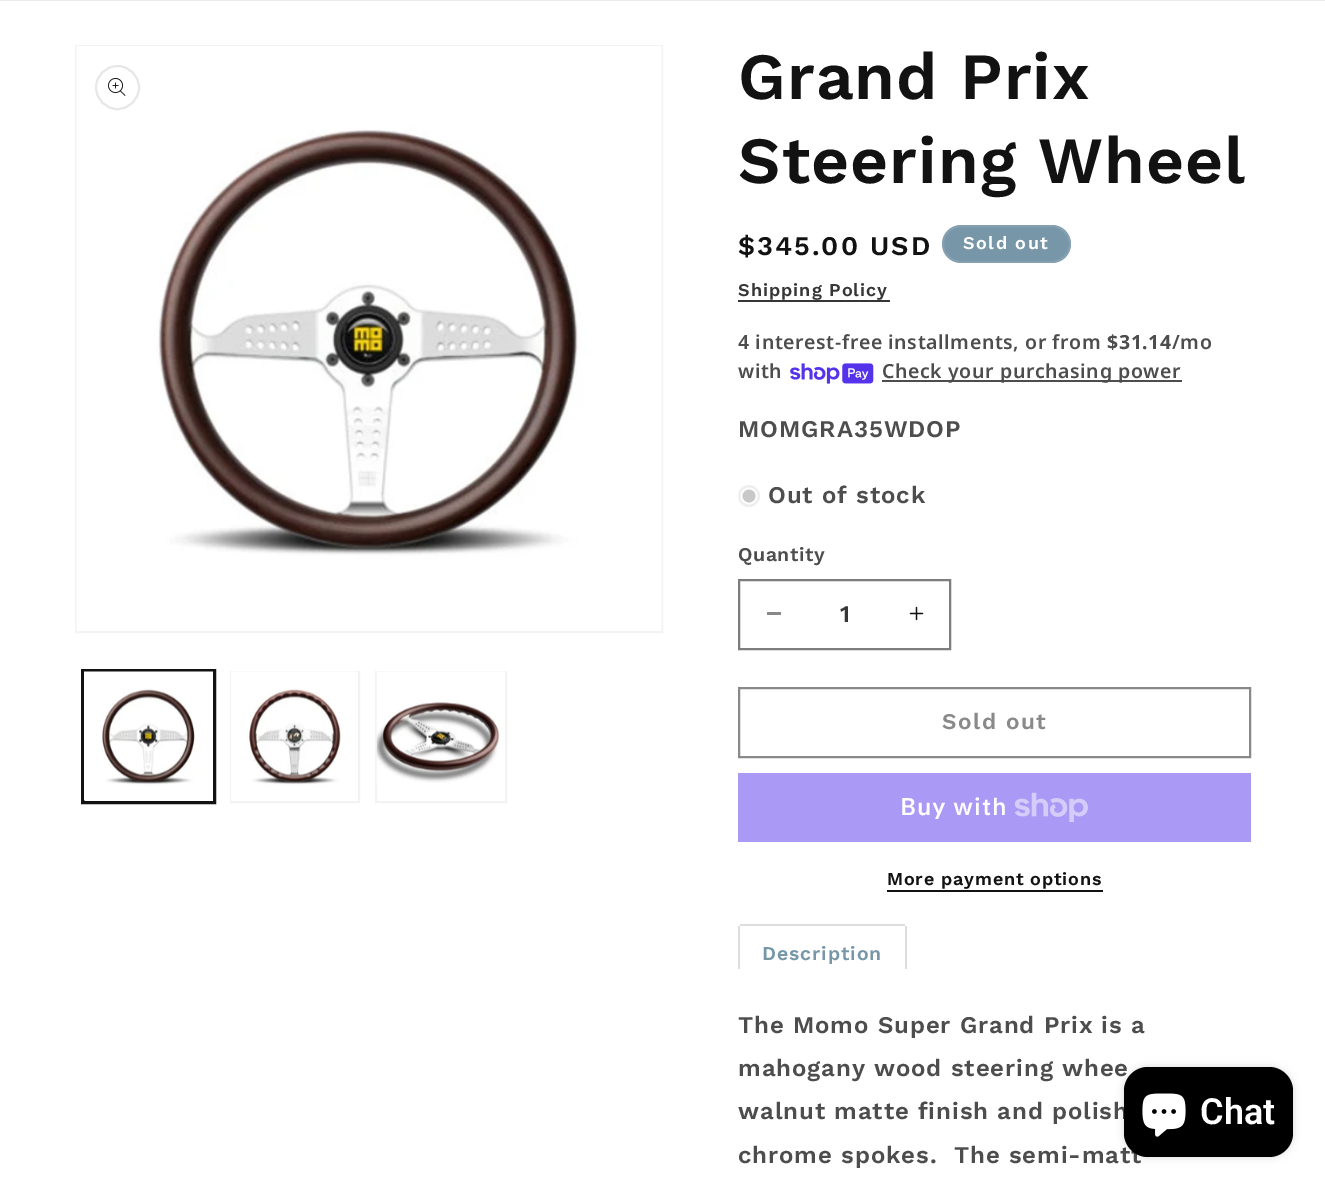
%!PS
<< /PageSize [1325 1187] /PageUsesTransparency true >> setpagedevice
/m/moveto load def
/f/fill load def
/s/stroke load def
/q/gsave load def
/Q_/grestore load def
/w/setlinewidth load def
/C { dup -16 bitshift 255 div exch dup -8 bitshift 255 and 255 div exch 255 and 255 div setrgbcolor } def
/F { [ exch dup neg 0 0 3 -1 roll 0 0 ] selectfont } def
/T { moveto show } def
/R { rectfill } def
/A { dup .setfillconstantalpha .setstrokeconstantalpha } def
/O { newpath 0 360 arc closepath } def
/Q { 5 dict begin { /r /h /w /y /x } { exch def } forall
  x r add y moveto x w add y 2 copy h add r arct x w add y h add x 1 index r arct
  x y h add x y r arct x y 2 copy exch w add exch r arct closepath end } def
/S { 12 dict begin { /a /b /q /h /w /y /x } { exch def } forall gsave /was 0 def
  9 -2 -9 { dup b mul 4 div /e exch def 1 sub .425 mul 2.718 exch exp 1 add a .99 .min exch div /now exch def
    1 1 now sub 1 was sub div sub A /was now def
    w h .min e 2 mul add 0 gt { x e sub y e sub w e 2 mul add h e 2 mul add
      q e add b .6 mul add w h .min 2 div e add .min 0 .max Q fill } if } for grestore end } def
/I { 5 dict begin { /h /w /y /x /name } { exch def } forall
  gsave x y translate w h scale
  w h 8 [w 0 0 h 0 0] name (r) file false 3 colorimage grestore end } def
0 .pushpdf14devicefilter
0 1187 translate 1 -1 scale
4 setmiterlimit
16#FFFFFF C
0 0 1325 1187 R
0.08 A
16#121212 C
0 0 1325 1 R
1 A
16#F3F3F3 C
2 w
76 46 586 586 rectstroke
(1.rgb) 76 46 586 585 I
16#E7E7E7 C
117.5 87.5 21.5 O s
(2.rgb) 108 78 18 18 I
16#121212 C
82 670 133 133 rectstroke
84 672 130 130 rectstroke
(3.rgb) 84 671 129 130 I
16#F3F3F3 C
231 672 128 130 rectstroke
(4.rgb) 231 671 127 130 I
376 672 130 130 rectstroke
(5.rgb) 376 671 129 112 I
/WorkSans-SemiBold 66 F
16#121212 C
738 99 m 1 0 (Grand Prix) ashow
738 183 m 1 0 (Steering Wheel) ashow
/WorkSans-SemiBold 27 F
738 255 m 2 0 ($345.00 USD) ashow
16#7796A8 C
942 225 129 38 19 Q f
0.1 A
16#FFFFFF C
943 226 127 36 18 Q s
/WorkSans-SemiBold 18 F
1 A
963 249 m 1.5 0 (Sold out) ashow
16#363636 C
738 296 m 1 0 (Shipping Policy) ashow
738 300 152 2 R
/NotoSans-SemiBold 19.5 F
16#4D4D4D C
738 349 m .6 0 (4 interest-free installments, or from) ashow
/NotoSans-Bold 19.5 F
1107 349 m .6 0 ($31.14) ashow
/NotoSans-SemiBold 19.5 F
1172 349 m .6 0 (/mo) ashow
738 378 m .6 0 (with) ashow
(6.rgb) 790 363 84 21 I
882 380 300 2 R
882 378 m .6 0 (Check your purchasing power) ashow
/WorkSans-SemiBold 24 F
738 437 m .9 0 (MOMGRA35WDOP) ashow
16#EFEFEF C
749 496 11 O f
16#C8C8C8 C
749 496 7.5 O q f Q_
16#FFFFFF C
1.5 w
s
16#4D4D4D C
768 503 m .9 0 (Out of stock) ashow
/WorkSans-SemiBold 19.5 F
738 561 m .6 0 (Quantity) ashow
16#898989 C
767 612 14 3 R
(7.rgb) 909 606 15 15 I
16#7D7D7D C
2 w
739 580 211 69 rectstroke
/WorkSans-SemiBold 24 F
16#363636 C
(1) 840 622 T
16#898989 C
739 688 511 69 rectstroke
/WorkSans-SemiBold 22.5 F
942 729 m 1.5 0 (Sold out) ashow
16#AA99F5 C
738 773 513 69 R
/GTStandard-SemiBold 24 F
16#FFFFFF C
900 815 m .9 0 (Buy with) ashow
(8.rgb) 1014 792 74 30 I
/WorkSans-SemiBold 18 F
16#121212 C
887 885 m .75 0 (More payment options) ashow
887 890 216 2 R
16#DDDDDD C
740 924 165 2 R
905 926 2 43 R
738 926 2 43 R
/WorkSans-SemiBold 19.5 F
16#7796A8 C
762 960 m .9 0 (Description) ashow
/WorkSans-SemiBold 24 F
16#4D4D4D C
738 1033 m .9 0 (The Momo Super Grand Prix is a) ashow
738 1076 m .9 0 (mahogany wood steering whee) ashow
738 1119 m .9 0 (walnut matte finish and polish) ashow
738 1163 m .9 0 (chrome spokes.  The semi-matt) ashow
16#000000 C
1124 1067 169 90 24 4 .15 S
1124 1067 169 90 24 Q f
(9.rgb) 1142 1093 44 44 I
/Roboto-SemiBold 36 F
16#FFFFFF C
(Chat) 1200 1124 T
.poppdf14devicefilter showpage
